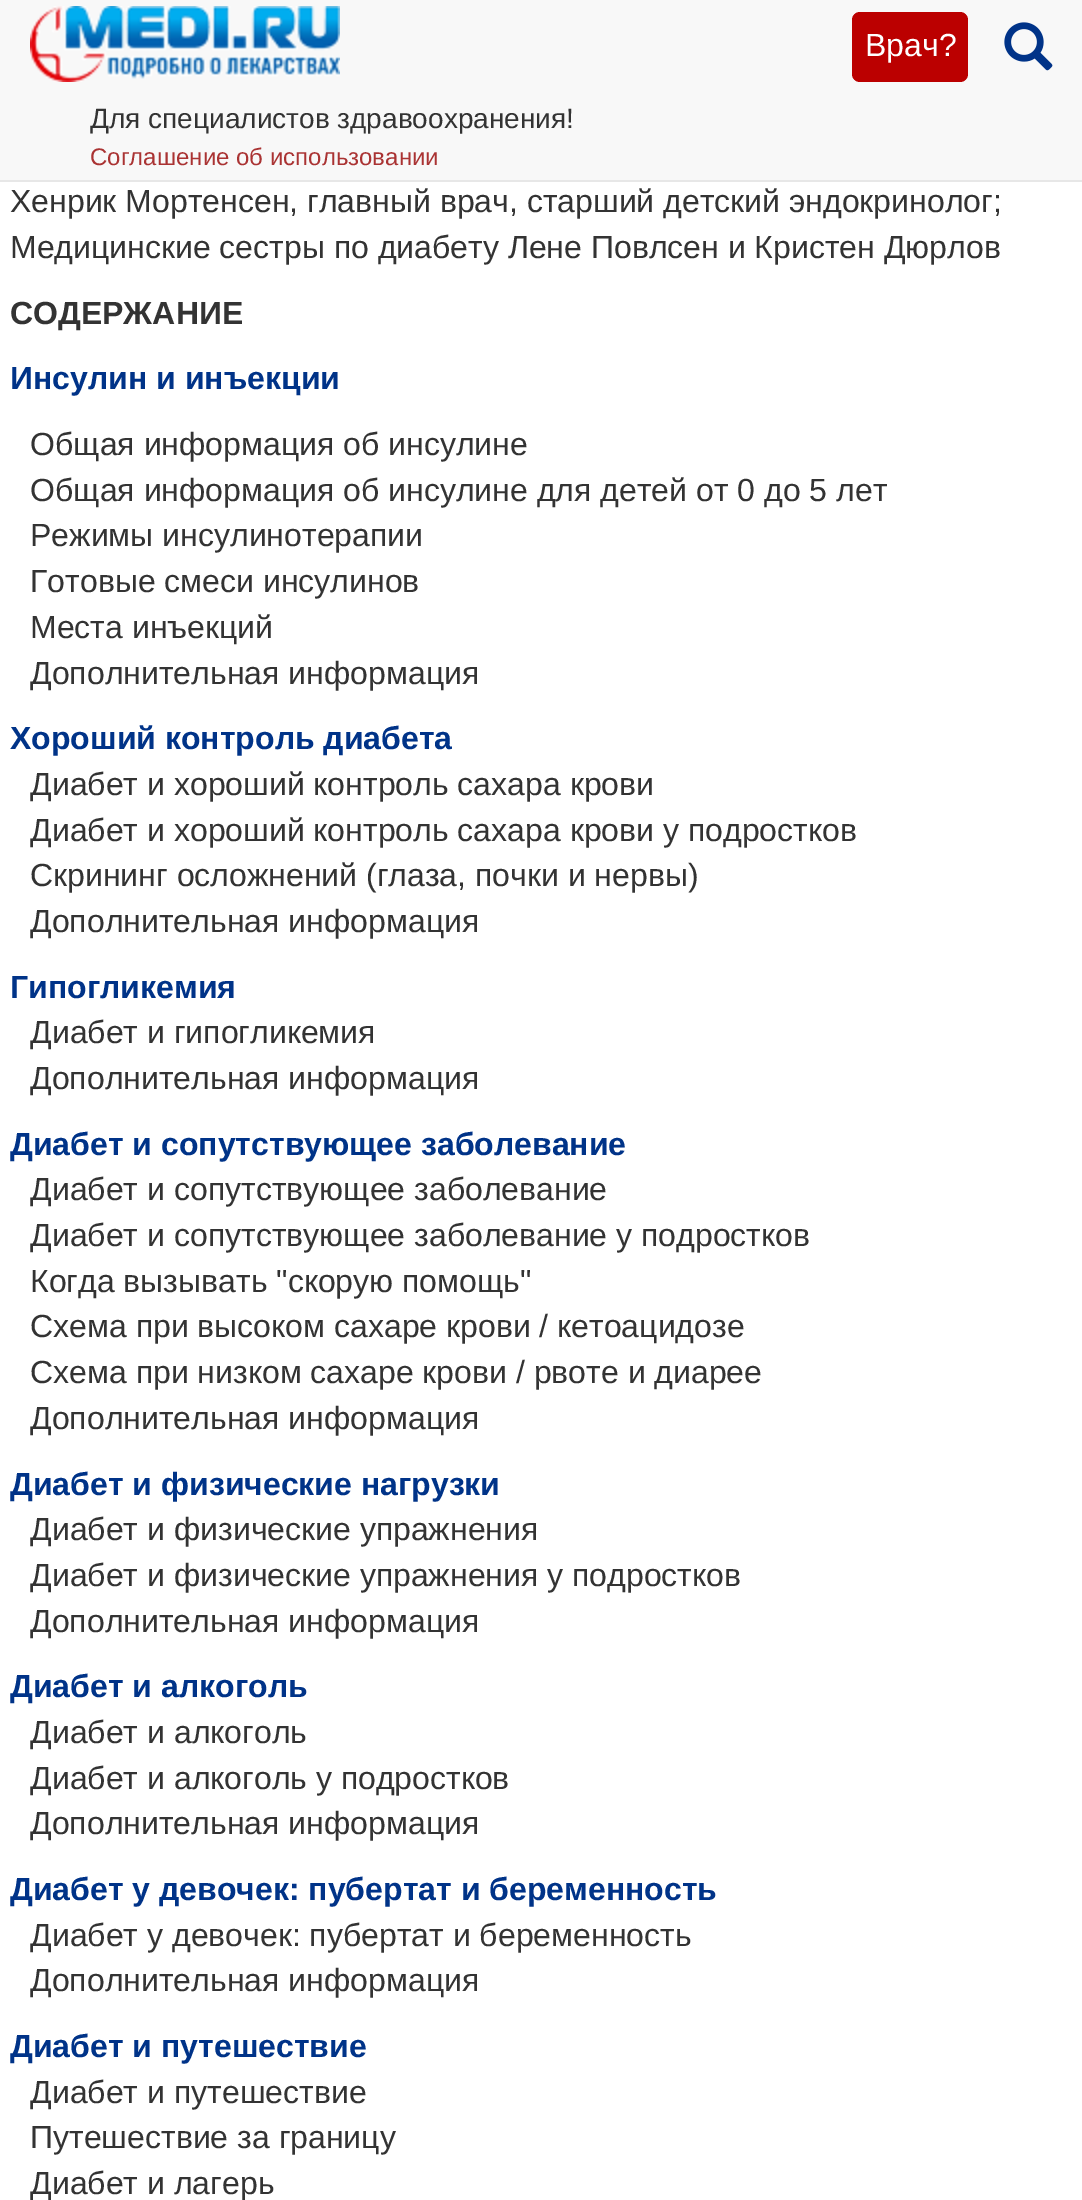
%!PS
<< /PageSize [1082 2200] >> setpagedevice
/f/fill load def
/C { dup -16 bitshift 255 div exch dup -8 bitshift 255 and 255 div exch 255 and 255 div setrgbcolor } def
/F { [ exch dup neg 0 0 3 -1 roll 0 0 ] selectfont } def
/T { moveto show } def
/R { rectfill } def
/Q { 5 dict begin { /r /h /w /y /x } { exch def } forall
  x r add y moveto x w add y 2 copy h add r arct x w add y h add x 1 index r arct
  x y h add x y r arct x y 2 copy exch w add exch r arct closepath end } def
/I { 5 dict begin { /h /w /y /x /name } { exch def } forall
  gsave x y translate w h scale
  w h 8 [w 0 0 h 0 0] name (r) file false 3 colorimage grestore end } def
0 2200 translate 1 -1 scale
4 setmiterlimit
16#FFFFFF C
0 0 1082 2200 R
16#F8F8F8 C
0 0 1082 180 R
16#E7E7E7 C
0 180 1082 2 R
(1.rgb) 30 6 310 76 I
16#BB0000 C
852 12 116 70 8 Q f
/LiberationSans-Regular 32 F
16#FFFFFF C
(Врач?) 865 56 T
(2.rgb) 1004 22 49 49 I
/LiberationSans-Regular 28 F
16#333333 C
(Для специалистов здравоохранения!) 90 128 T
/LiberationSans-Regular 24 F
16#AA3333 C
(Соглашение об использовании) 90 165 T
/LiberationSans-Regular 32 F
16#333333 C
(Хенрик Мортенсен, главный врач, старший детский эндокринолог;) 10 212 T
(Медицинские сестры по диабету Лене Повлсен и Кристен Дюрлов) 10 258 T
/LiberationSans-Bold 32 F
(СОДЕРЖАНИЕ) 10 324 T
16#003388 C
(Инсулин и инъекции) 10 389 T
/LiberationSans-Regular 32 F
16#333333 C
(Общая информация об инсулине) 30 455 T
(Общая информация об инсулине для детей от 0 до 5 лет) 30 501 T
(Режимы инсулинотерапии) 30 546 T
(Готовые смеси инсулинов) 30 592 T
(Места инъекций) 30 638 T
(Дополнительная информация) 30 684 T
/LiberationSans-Bold 32 F
16#003388 C
(Хороший контроль диабета) 10 749 T
/LiberationSans-Regular 32 F
16#333333 C
(Диабет и хороший контроль сахара крови) 30 795 T
(Диабет и хороший контроль сахара крови у подростков) 30 841 T
(Скрининг осложнений \(глаза, почки и нервы\)) 30 886 T
(Дополнительная информация) 30 932 T
/LiberationSans-Bold 32 F
16#003388 C
(Гипогликемия) 10 998 T
/LiberationSans-Regular 32 F
16#333333 C
(Диабет и гипогликемия) 30 1043 T
(Дополнительная информация) 30 1089 T
/LiberationSans-Bold 32 F
16#003388 C
(Диабет и сопутствующее заболевание) 10 1155 T
/LiberationSans-Regular 32 F
16#333333 C
(Диабет и сопутствующее заболевание) 30 1200 T
(Диабет и сопутствующее заболевание у подростков) 30 1246 T
(Когда вызывать "скорую помощь") 30 1292 T
(Схема при высоком сахаре крови / кетоацидозе) 30 1337 T
(Схема при низком сахаре крови / рвоте и диарее) 30 1383 T
(Дополнительная информация) 30 1429 T
/LiberationSans-Bold 32 F
16#003388 C
(Диабет и физические нагрузки) 10 1495 T
/LiberationSans-Regular 32 F
16#333333 C
(Диабет и физические упражнения) 30 1540 T
(Диабет и физические упражнения у подростков) 30 1586 T
(Дополнительная информация) 30 1632 T
/LiberationSans-Bold 32 F
16#003388 C
(Диабет и алкоголь) 10 1697 T
/LiberationSans-Regular 32 F
16#333333 C
(Диабет и алкоголь) 30 1743 T
(Диабет и алкоголь у подростков) 30 1789 T
(Дополнительная информация) 30 1834 T
/LiberationSans-Bold 32 F
16#003388 C
(Диабет у девочек: пубертат и беременность) 10 1900 T
/LiberationSans-Regular 32 F
16#333333 C
(Диабет у девочек: пубертат и беременность) 30 1946 T
(Дополнительная информация) 30 1991 T
/LiberationSans-Bold 32 F
16#003388 C
(Диабет и путешествие) 10 2057 T
/LiberationSans-Regular 32 F
16#333333 C
(Диабет и путешествие) 30 2103 T
(Путешествие за границу) 30 2148 T
(Диабет и лагерь) 30 2194 T
showpage
